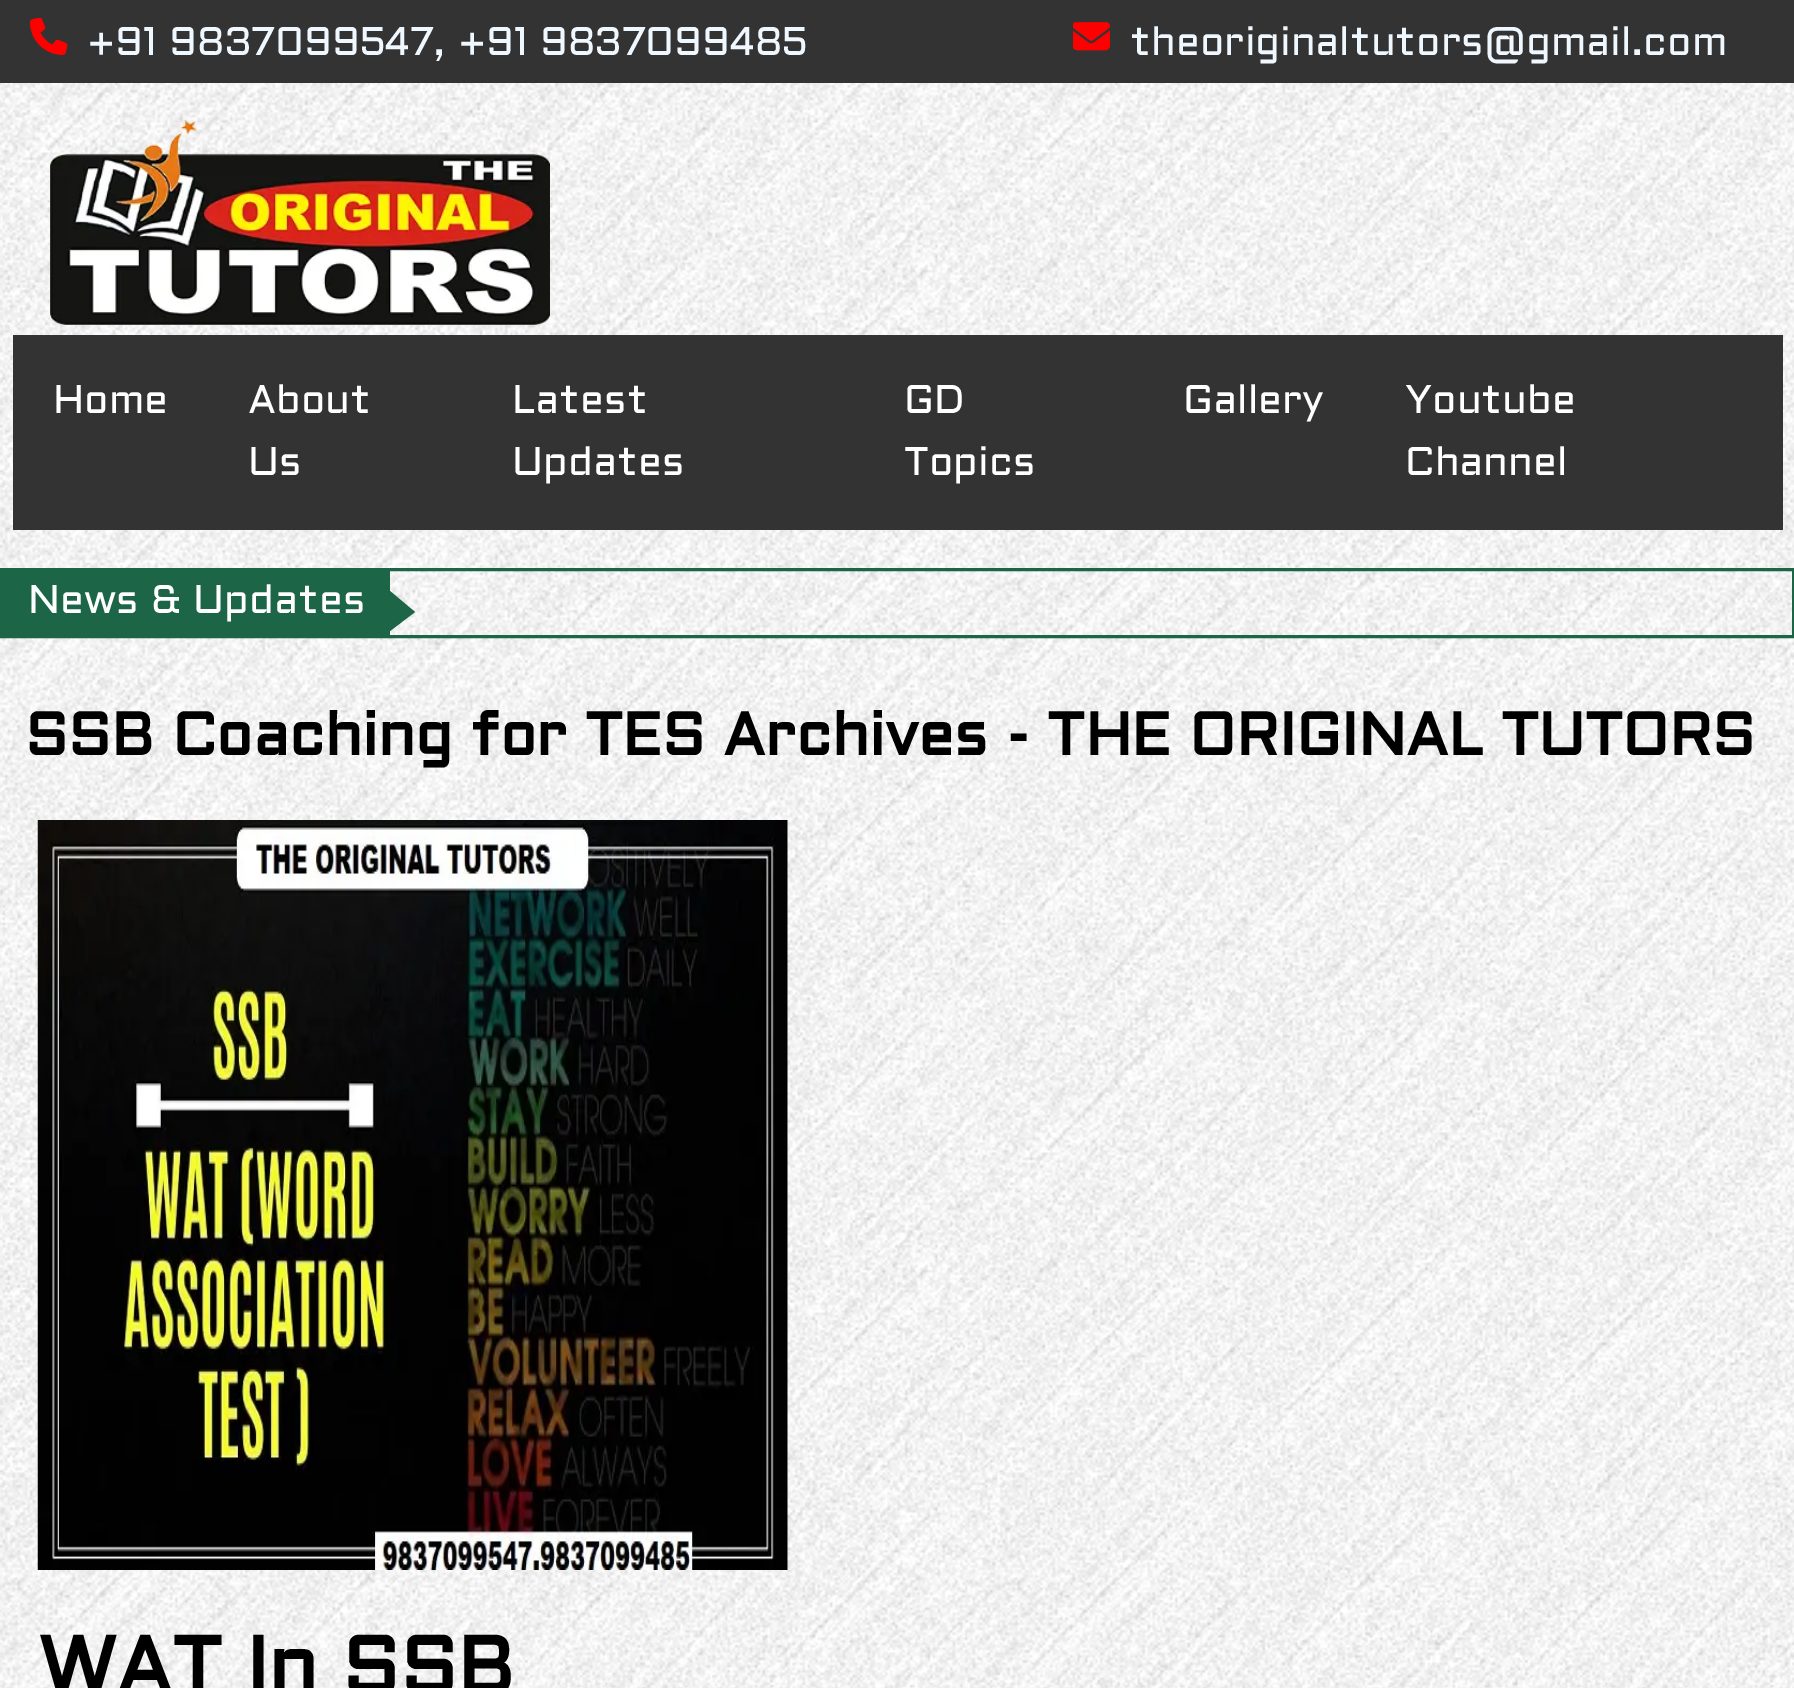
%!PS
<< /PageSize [1794 1688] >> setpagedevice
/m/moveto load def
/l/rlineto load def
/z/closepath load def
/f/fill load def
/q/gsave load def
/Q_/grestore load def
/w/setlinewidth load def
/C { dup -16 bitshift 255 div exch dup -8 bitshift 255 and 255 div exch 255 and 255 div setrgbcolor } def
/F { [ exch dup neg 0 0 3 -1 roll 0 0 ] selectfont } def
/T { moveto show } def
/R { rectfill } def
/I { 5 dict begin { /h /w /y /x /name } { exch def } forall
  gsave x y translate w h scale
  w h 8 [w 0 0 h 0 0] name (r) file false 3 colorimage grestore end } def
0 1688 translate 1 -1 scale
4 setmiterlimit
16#FFFFFF C
0 0 1794 1688 R
(1.rgb) 0 83 1794 1605 I
16#333333 C
0 0 1794 83 R
(2.rgb) 30 18 38 37 I
/Aldrich-Regular 40 F
16#F0F8FF C
(+91 9837099547, +91 9837099485) 87 55 T
(3.rgb) 1073 22 37 29 I
(theoriginaltutors@gmail.com) 1130 55 T
(4.rgb) 50 120 500 205 I
16#333333 C
13 335 1770 195 R
16#FFFFFF C
(Home) 53 413 T
(About) 248 413 T
(Us) 248 475 T
(Latest) 512 413 T
(Updates) 512 475 T
(GD) 904 413 T
(Topics) 904 475 T
(Gallery) 1183 413 T
(Youtube) 1405 413 T
(Channel) 1405 475 T
16#1C6547 C
3 w
1.5 569.5 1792 67 rectstroke
3 571 387 64 R
16#FFFFFF C
(News & Updates) 28 613 T
q
3 570 1790 65 rectclip
16#1C6547 C
365 650 m 0 -80 l 50 42 l z f
Q_
/Aldrich-Bold 60 F
16#000000 C
(SSB Coaching for TES Archives - THE ORIGINAL TUTORS) 25 755 T
(5.rgb) 37 820 751 750 I
/Aldrich-Bold 80 F
(WAT In SSB) 38 1693 T
showpage
